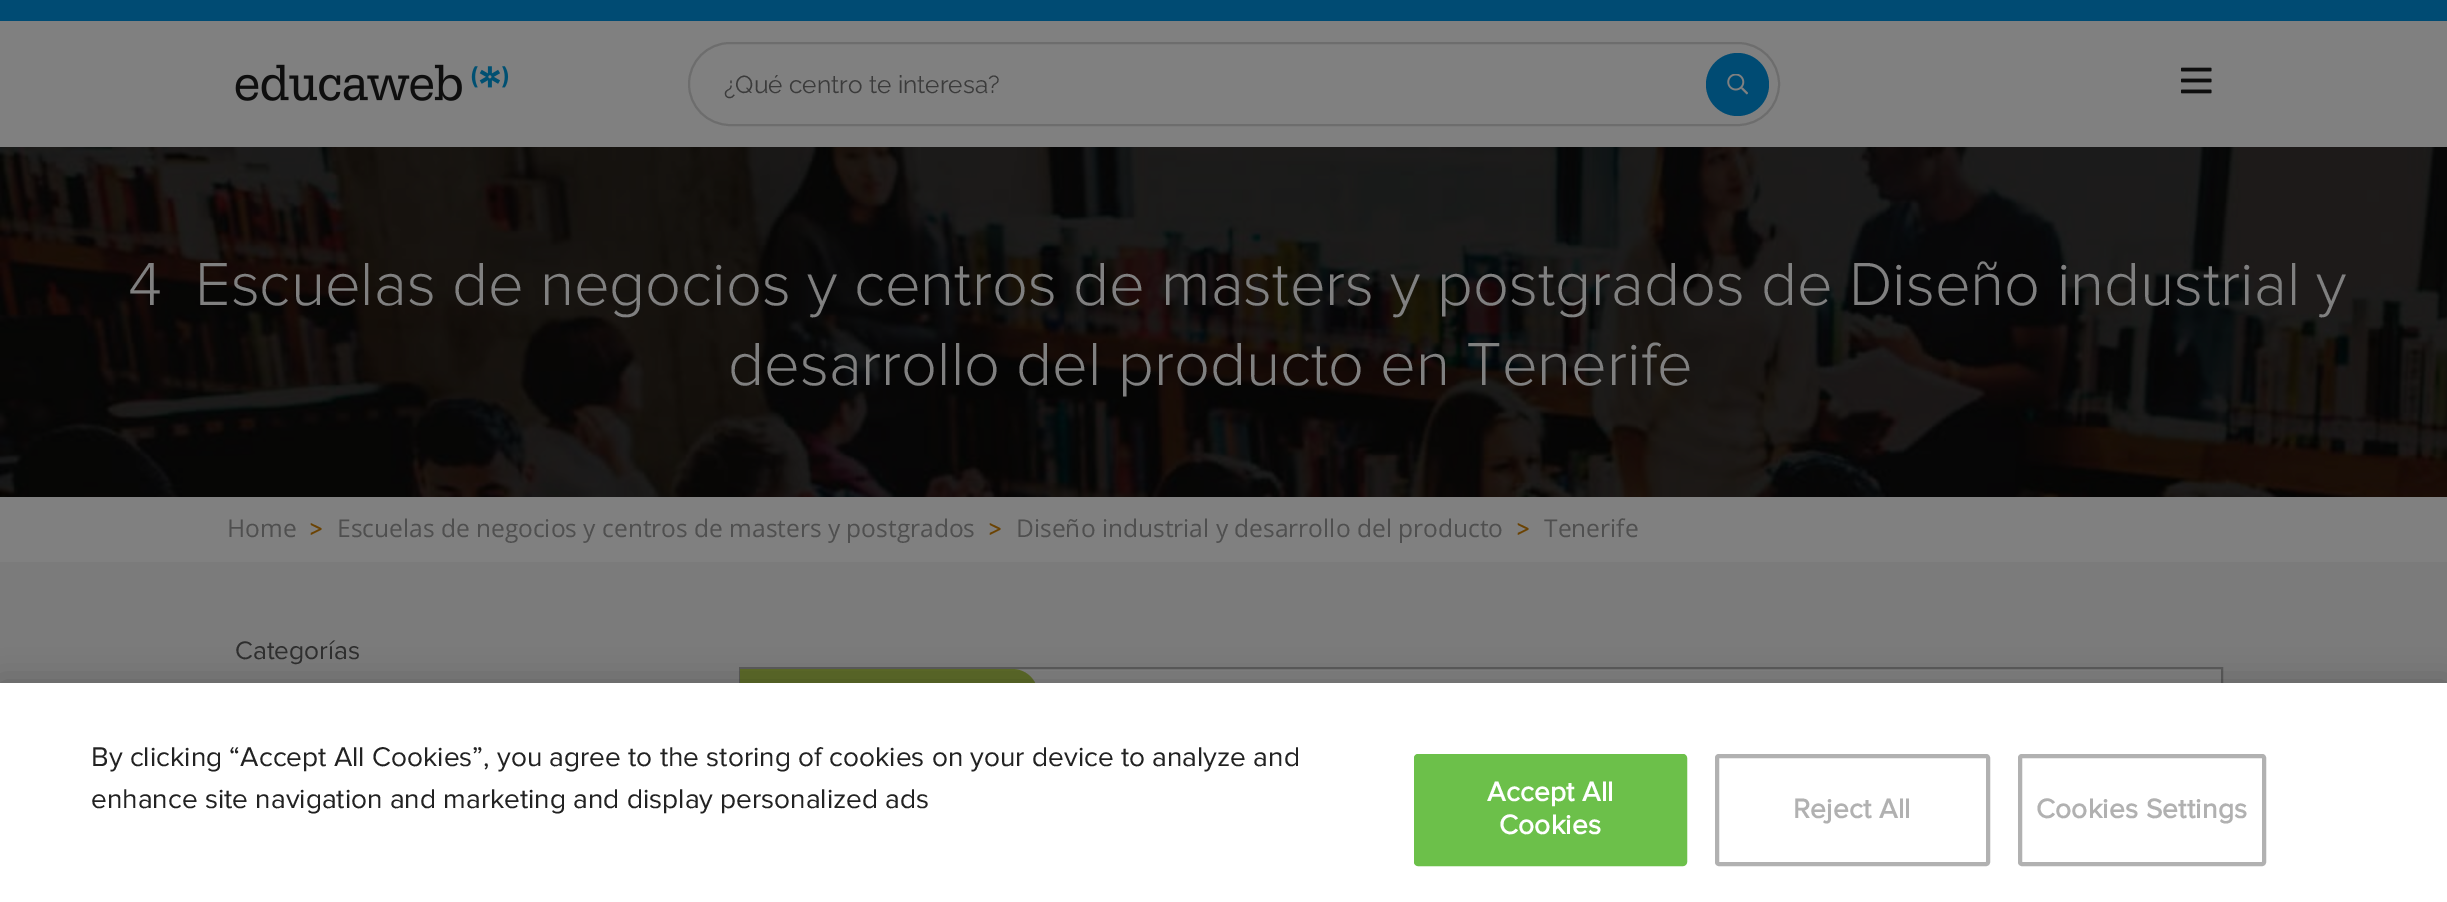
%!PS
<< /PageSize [2447 902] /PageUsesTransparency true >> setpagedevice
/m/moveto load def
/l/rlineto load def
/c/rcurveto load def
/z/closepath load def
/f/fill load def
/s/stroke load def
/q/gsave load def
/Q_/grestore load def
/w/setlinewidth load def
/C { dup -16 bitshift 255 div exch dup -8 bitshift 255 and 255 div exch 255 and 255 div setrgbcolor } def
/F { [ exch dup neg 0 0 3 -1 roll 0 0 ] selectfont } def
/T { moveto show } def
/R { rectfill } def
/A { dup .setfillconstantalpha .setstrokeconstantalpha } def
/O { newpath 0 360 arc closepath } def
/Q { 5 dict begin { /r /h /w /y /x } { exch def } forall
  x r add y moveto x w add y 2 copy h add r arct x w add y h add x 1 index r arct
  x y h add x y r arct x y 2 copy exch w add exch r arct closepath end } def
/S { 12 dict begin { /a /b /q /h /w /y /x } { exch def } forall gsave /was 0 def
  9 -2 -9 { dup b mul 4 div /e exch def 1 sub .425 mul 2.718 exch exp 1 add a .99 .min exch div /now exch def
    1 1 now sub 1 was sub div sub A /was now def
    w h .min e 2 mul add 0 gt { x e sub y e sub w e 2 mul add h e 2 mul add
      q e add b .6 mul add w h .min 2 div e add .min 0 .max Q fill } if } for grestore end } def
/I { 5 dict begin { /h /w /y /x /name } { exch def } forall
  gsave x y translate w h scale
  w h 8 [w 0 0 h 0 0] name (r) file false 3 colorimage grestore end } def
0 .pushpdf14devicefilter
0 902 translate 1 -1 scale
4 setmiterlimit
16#7B7B7B C
0 0 2447 902 R
16#808080 C
0 21 2447 126 R
16#004B73 C
0 0 2447 21 R
(1.rgb) 235 64 274 37 I
16#6D6D6D C
2 w
689 43 1090 82 41 Q s
/Raleway-Regular 24.5 F
16#3B3B3B C
(¿Qué centro te interesa?) 724 93 T
16#004B73 C
1737.5 84.5 31.5 O f
(2.rgb) 1727 74 21 21 I
(3.rgb) 2181 67 31 27 I
(4.rgb) 0 147 2447 350 I
/ProximaNova-Light 63 F
16#808080 C
(4) 128 305 T
(Escuelas de negocios y centros de masters y postgrados de Diseño industrial y) 195 305 T
(desarrollo del producto en Tenerife) 728 385 T
0 497 2447 65 R
/OpenSans-Regular 24.5 F
16#4F4F4F C
(Home) 227 537 T
/ProximaNova-Bold 23 F
16#6B4303 C
(>) 310 537 T
/OpenSans-Regular 24.5 F
16#4F4F4F C
(Escuelas de negocios y centros de masters y postgrados) 337 537 T
/ProximaNova-Bold 23 F
16#6B4303 C
(>) 989 537 T
/OpenSans-Regular 24.5 F
16#4F4F4F C
(Diseño industrial y desarrollo del producto) 1016 537 T
/ProximaNova-Bold 23 F
16#6B4303 C
(>) 1517 537 T
/OpenSans-Regular 24.5 F
16#4F4F4F C
(Tenerife) 1544 537 T
/ProximaNova-Regular 26.25 F
16#2E2E2E C
(Categorías) 235 659 T
16#808080 C
1012 669 1209 14 R
16#5A5A5A C
740 668 1482 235 rectstroke
16#5C6A28 C
740 669 m 272 0 l 14.5 0 26 11.5 26 26 c 0 14.5 -11.5 26 -26 26 c -272 0 l z f
16#000000 C
0 683 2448 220 0 16 .2 S
16#FFFFFF C
0 683 2447 219 R
/ProximaNova-Regular 28 F
16#222222 C
(By clicking “Accept All Cookies”, you agree to the storing of cookies on your device to analyze and) 91 766 T
(enhance site navigation and marketing and display personalized ads) 91 808 T
16#6CC04A C
1415 755 271 110 3 Q q f Q_
s
/ProximaNova-Bold 28 F
16#FFFFFF C
1487 801 m .25 0 (Accept All) ashow
1499 834 m .25 0 (Cookies) ashow
16#B1B1B1 C
4 w
1717 756 271 108 2 Q s
1793 818 m .25 0 (Reject All) ashow
2020 756 244 108 2 Q s
2036 818 m .25 0 (Cookies Settings) ashow
.poppdf14devicefilter showpage
